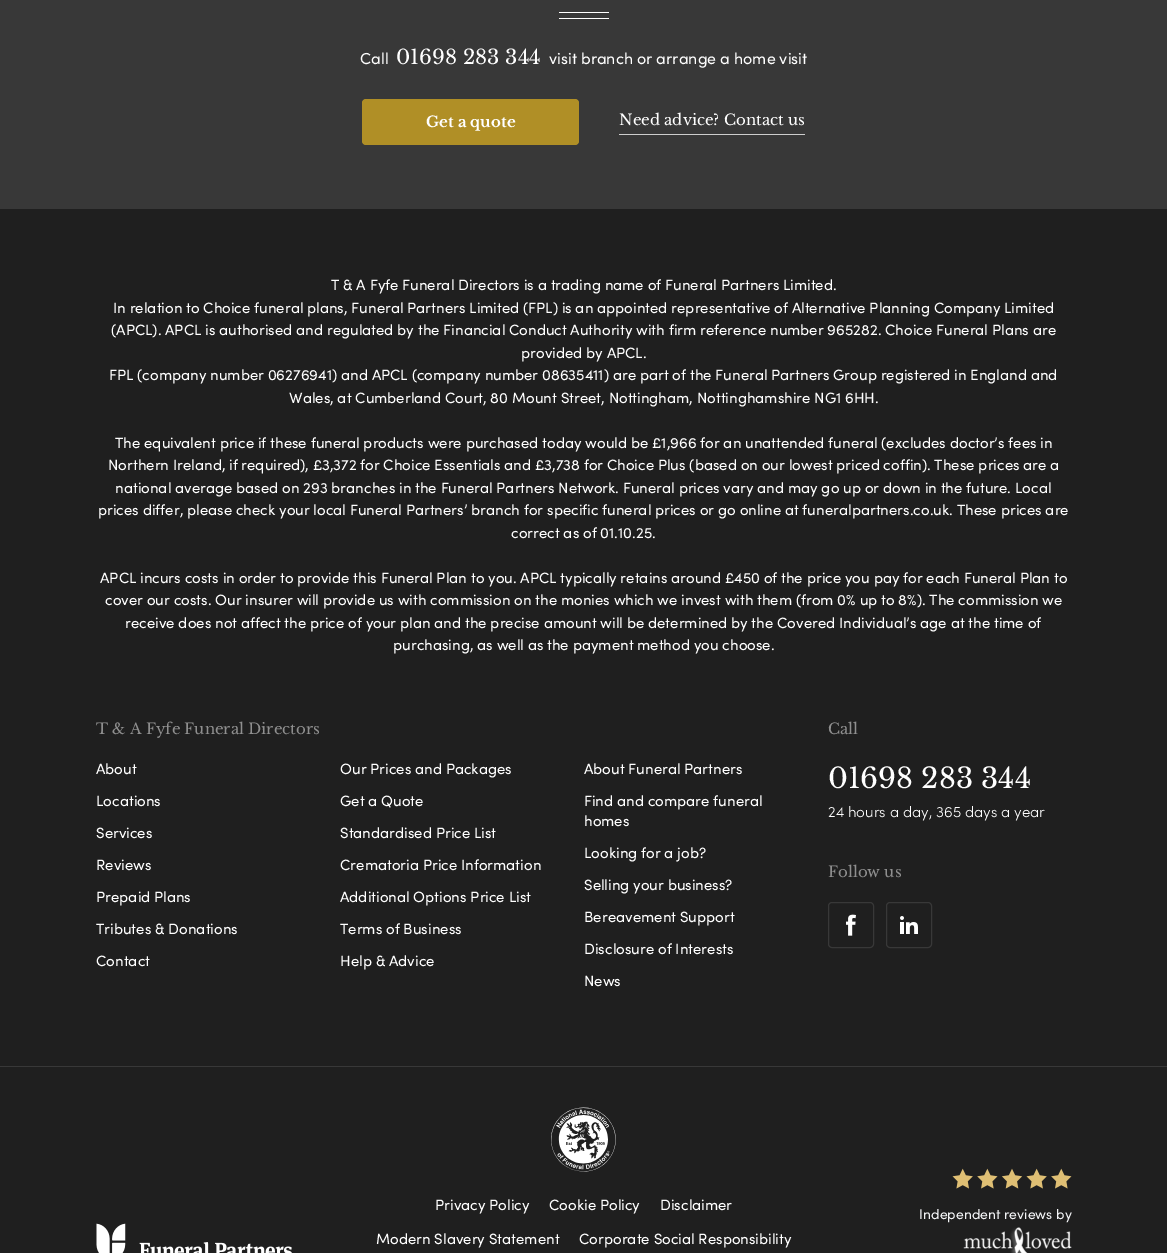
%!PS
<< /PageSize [1167 1253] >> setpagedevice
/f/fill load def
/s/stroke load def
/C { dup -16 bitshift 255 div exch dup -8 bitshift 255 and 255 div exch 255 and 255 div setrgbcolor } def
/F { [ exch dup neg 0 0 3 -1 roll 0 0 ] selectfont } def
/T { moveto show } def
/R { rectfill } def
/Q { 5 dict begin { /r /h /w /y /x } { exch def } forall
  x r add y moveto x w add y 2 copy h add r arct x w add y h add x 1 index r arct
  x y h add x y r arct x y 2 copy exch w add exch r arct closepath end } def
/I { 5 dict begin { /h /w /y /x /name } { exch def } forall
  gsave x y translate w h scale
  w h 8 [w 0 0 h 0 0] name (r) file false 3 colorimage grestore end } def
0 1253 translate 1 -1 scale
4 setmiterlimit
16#383838 C
0 0 1167 1253 R
16#FFFFFF C
559 12 50 1 R
559 18 50 1 R
/Sofia-Regular 16 F
(Call) 360 64 T
/LibreBaskerville-Regular 20 F
(01698 283 344) 396 64 T
/Sofia-Regular 16 F
(visit branch or arrange a home visit) 549 64 T
16#B08F26 C
362 99 217 46 4 Q f
/LibreBaskerville-Bold 15 F
16#FFFFFF C
(Get a quote) 426 127 T
/LibreBaskerville-Regular 15 F
(Need advice? Contact us) 619 125 T
16#CECECE C
619 134 186 1 R
16#1F1F1F C
0 209 1167 1044 R
/Sofia-Regular 15 F
16#FFFFFF C
(T & A Fyfe Funeral Directors is a trading name of Funeral Partners Limited.) 331 290 T
(In relation to Choice funeral plans, Funeral Partners Limited \(FPL\) is an appointed representative of Alternative Planning Company Limited) 113 313 T
(\(APCL\). APCL is authorised and regulated by the Financial Conduct Authority with firm reference number 965282. Choice Funeral Plans are) 111 335 T
(provided by APCL.) 521 358 T
(FPL \(company number 06276941\) and APCL \(company number 08635411\) are part of the Funeral Partners Group registered in England and) 109 380 T
(Wales, at Cumberland Court, 80 Mount Street, Nottingham, Nottinghamshire NG1 6HH.) 289 403 T
(The equivalent price if these funeral products were purchased today would be £1,966 for an unattended funeral \(excludes doctor’s fees in) 115 448 T
(Northern Ireland, if required\), £3,372 for Choice Essentials and £3,738 for Choice Plus \(based on our lowest priced coffin\). These prices are a) 108 470 T
(national average based on 293 branches in the Funeral Partners Network. Funeral prices vary and may go up or down in the future. Local) 115 493 T
(prices differ, please check your local Funeral Partners’ branch for specific funeral prices or go online at funeralpartners.co.uk. These prices are) 98 515 T
(correct as of 01.10.25.) 511 538 T
(APCL incurs costs in order to provide this Funeral Plan to you. APCL typically retains around £450 of the price you pay for each Funeral Plan to) 100 583 T
(cover our costs. Our insurer will provide us with commission on the monies which we invest with them \(from 0% up to 8%\). The commission we) 105 605 T
(receive does not affect the price of your plan and the precise amount will be determined by the Covered Individual’s age at the time of) 125 628 T
(purchasing, as well as the payment method you choose.) 393 650 T
/LibreBaskerville-Regular 15 F
16#8F8F8F C
(T & A Fyfe Funeral Directors) 96 734 T
/Sofia-Regular 15 F
16#FFFFFF C
(About) 96 774 T
(Locations) 96 806 T
(Services) 96 838 T
(Reviews) 96 870 T
(Prepaid Plans) 96 902 T
(Tributes & Donations) 96 934 T
(Contact) 96 966 T
(Our Prices and Packages) 340 774 T
(Get a Quote) 340 806 T
(Standardised Price List) 340 838 T
(Crematoria Price Information) 340 870 T
(Additional Options Price List) 340 902 T
(Terms of Business) 340 934 T
(Help & Advice) 340 966 T
(About Funeral Partners) 584 774 T
(Find and compare funeral) 584 806 T
(homes) 584 826 T
(Looking for a job?) 584 858 T
(Selling your business?) 584 890 T
(Bereavement Support) 584 922 T
(Disclosure of Interests) 584 954 T
(News) 584 986 T
/LibreBaskerville-Regular 15 F
16#8F8F8F C
(Call) 828 734 T
/LibreBaskerville-Regular 28 F
16#FFFFFF C
(01698 283 344) 828 788 T
/Sofia-Light 15 F
(24 hours a day, 365 days a year) 828 817 T
/LibreBaskerville-Regular 15 F
16#8F8F8F C
(Follow us) 828 877 T
16#383838 C
828.5 902.5 45 45 3.5 Q s
(1.rgb) 846 914 10 22 I
886.5 902.5 45 45 3.5 Q s
(2.rgb) 900 916 18 18 I
0 1066 1167 1 R
(3.rgb) 551 1107 65 65 I
/Sofia-Regular 15 F
16#FFFFFF C
(Privacy Policy) 435 1210 T
(Cookie Policy) 549 1210 T
(Disclaimer) 660 1210 T
(Modern Slavery Statement) 376 1244 T
(Corporate Social Responsibility) 579 1244 T
(4.rgb) 952 1168 120 21 I
/Sofia-Regular 14 F
16#F3F4F6 C
(Independent reviews by) 919 1219 T
(5.rgb) 963 1227 109 26 I
(6.rgb) 96 1223 196 30 I
showpage
